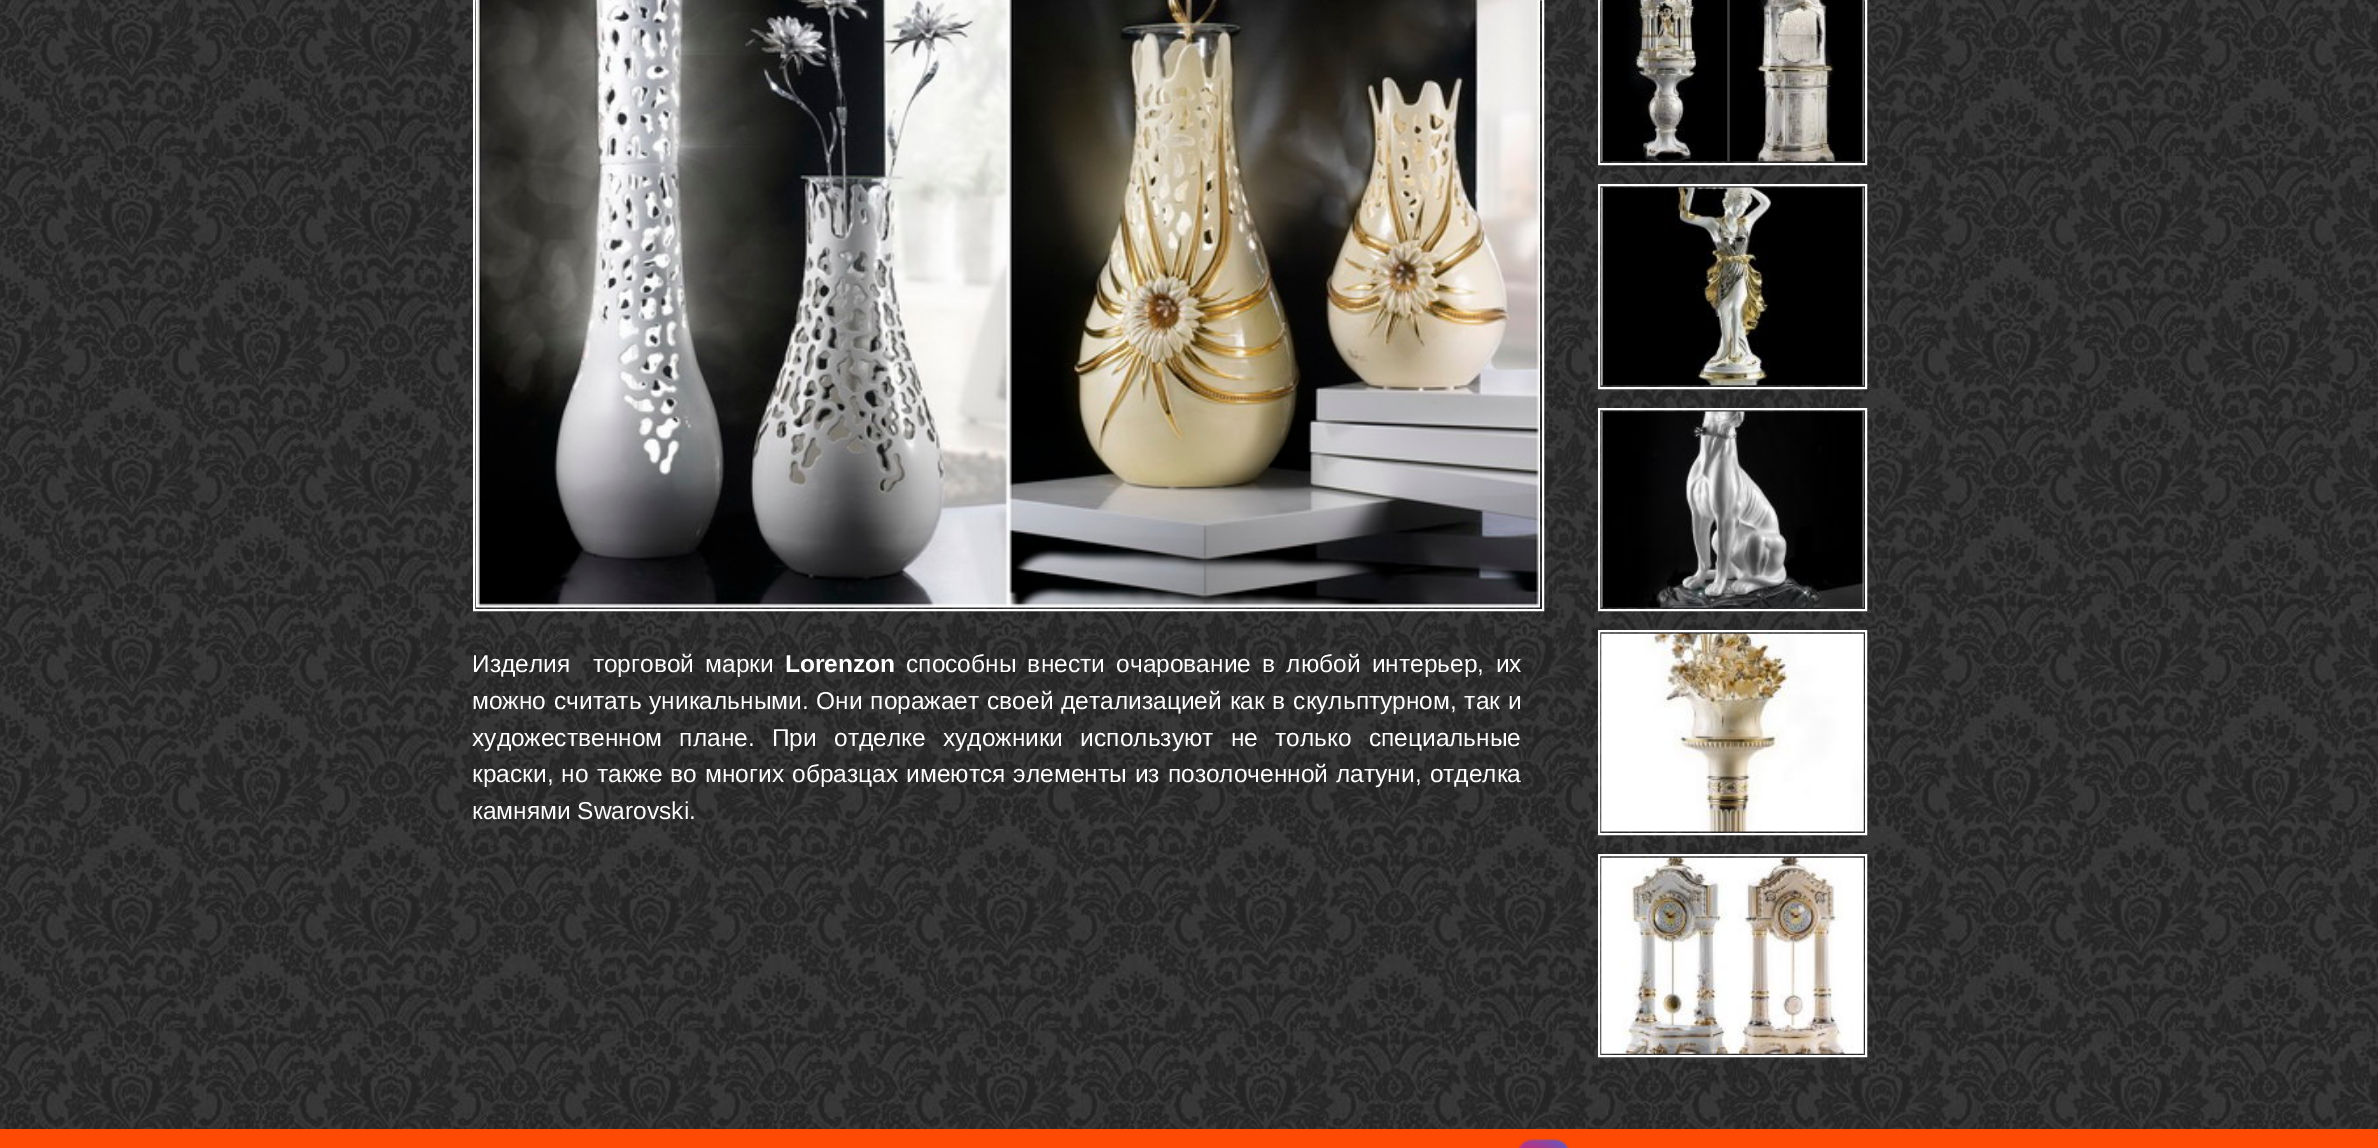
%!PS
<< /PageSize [2378 1148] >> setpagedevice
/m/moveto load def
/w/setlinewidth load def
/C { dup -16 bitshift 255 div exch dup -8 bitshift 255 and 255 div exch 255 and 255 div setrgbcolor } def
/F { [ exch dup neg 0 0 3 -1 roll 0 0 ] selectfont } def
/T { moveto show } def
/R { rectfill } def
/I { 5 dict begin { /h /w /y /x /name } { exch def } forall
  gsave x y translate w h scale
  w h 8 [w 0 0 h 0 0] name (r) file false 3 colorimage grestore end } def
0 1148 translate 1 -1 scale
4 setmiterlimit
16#FFFFFF C
0 0 2378 1148 R
(1.rgb) 0 0 2378 1129 I
2 w
474 -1 1069 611 rectstroke
(2.rgb) 476 0 1064 608 I
/LiberationSans-Regular 24.5 F
472 672 m 4.5 0 32 (Изделия  торговой марки) widthshow
/LiberationSans-Bold 24.5 F
(Lorenzon) 785 672 T
/LiberationSans-Regular 24.5 F
906 672 m 4.5 0 32 (способны внести очарование в любой интерьер, их) widthshow
472 709 m 1 0 32 (можно считать уникальными. Они поражает своей детализацией как в скульптурном, так и) widthshow
472 746 m 10.5 0 32 (художественном плане. При отделке художники используют не только специальные) widthshow
472 782 m 1.25 0 32 (краски, но также во многих образцах имеются элементы из позолоченной латуни, отделка) widthshow
(камнями Swarovski.) 472 819 T
1599 -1 267 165 rectstroke
(3.rgb) 1601 0 263 162 I
1599 185 267 203 rectstroke
(4.rgb) 1601 187 263 199 I
1599 409 267 201 rectstroke
(5.rgb) 1601 411 263 197 I
1599 631 267 203 rectstroke
(6.rgb) 1601 633 263 199 I
1599 855 267 201 rectstroke
(7.rgb) 1601 857 263 197 I
16#FF4A03 C
0 1129 2378 19 R
(8.rgb) 1518 1139 51 9 I
showpage
